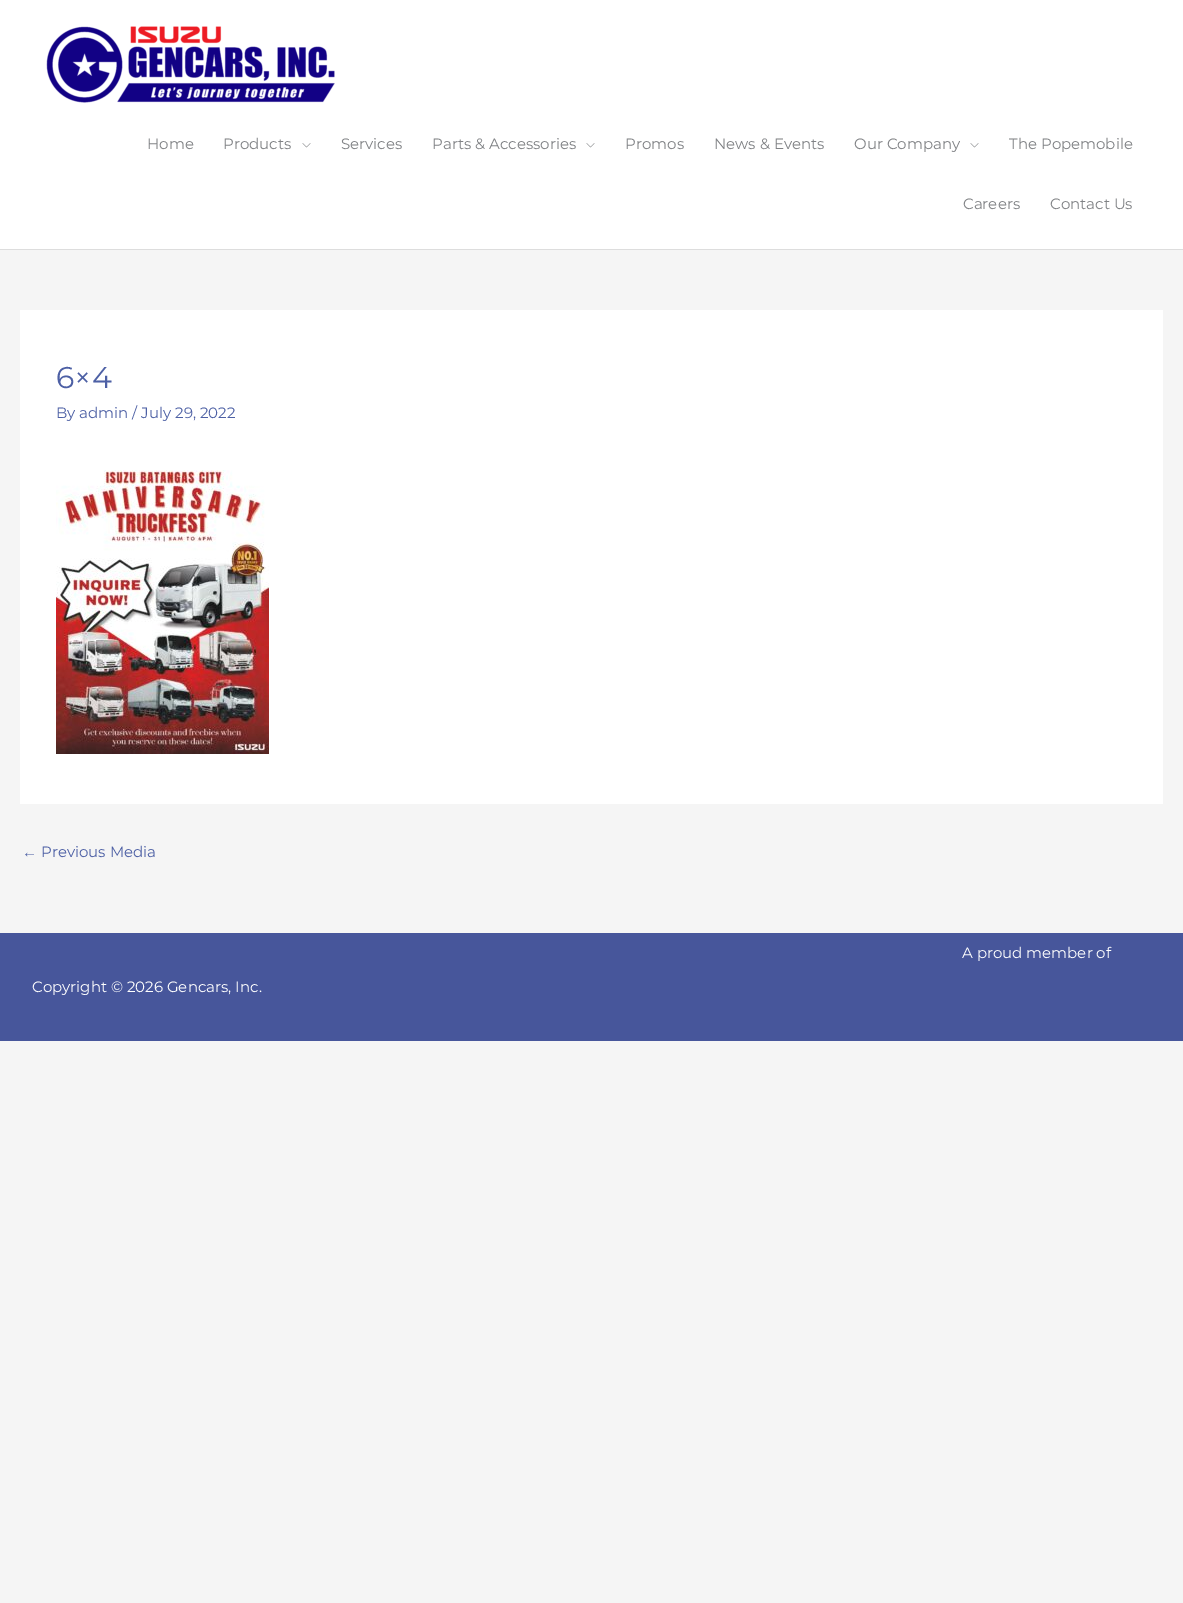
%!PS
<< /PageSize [1183 1603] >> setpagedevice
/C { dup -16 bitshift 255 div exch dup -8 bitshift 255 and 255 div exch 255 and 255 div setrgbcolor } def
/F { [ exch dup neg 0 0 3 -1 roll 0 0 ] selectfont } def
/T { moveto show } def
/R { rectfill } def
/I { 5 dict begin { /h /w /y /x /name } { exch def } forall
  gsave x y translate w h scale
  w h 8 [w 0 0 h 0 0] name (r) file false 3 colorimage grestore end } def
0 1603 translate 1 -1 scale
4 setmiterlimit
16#F5F5F5 C
0 0 1183 1603 R
16#FFFFFF C
0 0 1183 249 R
16#DDDDDD C
0 249 1183 1 R
(1.rgb) 46 26 289 77 I
/Montserrat-Regular 15 F
16#808285 C
(Home) 147 149 T
(Products) 223 149 T
(2.rgb) 302 143 9 5 I
(Services) 341 149 T
(Parts & Accessories) 432 149 T
(2.rgb) 586 143 9 5 I
(Promos) 625 149 T
(News & Events) 714 149 T
(Our Company) 854 149 T
(2.rgb) 970 143 9 5 I
(The Popemobile) 1009 149 T
(Careers) 963 209 T
(Contact Us) 1050 209 T
16#FFFFFF C
20 310 1143 494 R
/Montserrat-Regular 30 F
16#4D60A5 C
(6×4) 56 388 T
/Montserrat-Regular 15 F
(By admin / July 29, 2022) 56 418 T
(3.rgb) 56 470 213 284 I
/LiberationSans-Regular 15 F
(←) 22 857 T
/Montserrat-Regular 15 F
(Previous Media) 41 857 T
16#47569B C
0 933 1183 108 R
16#FFFFFF C
(A proud member of) 962 958 T
(Copyright © 2026 Gencars, Inc.) 32 992 T
showpage
